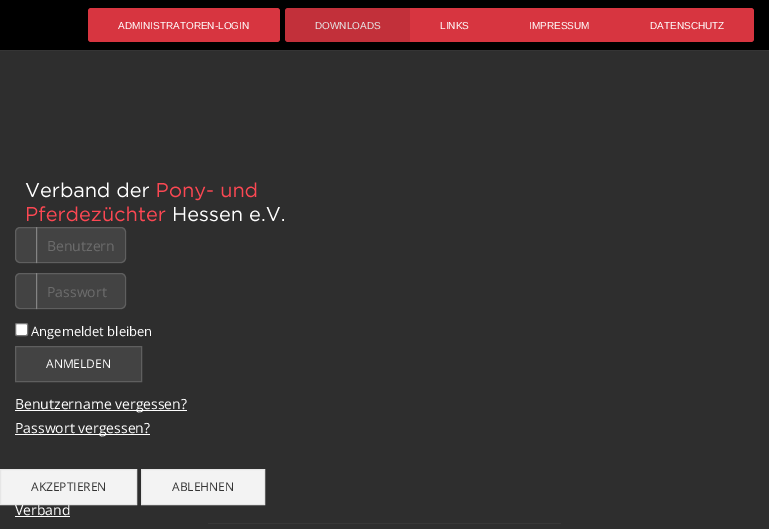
%!PS
<< /PageSize [769 529] /PageUsesTransparency true >> setpagedevice
/m/moveto load def
/l/rlineto load def
/c/rcurveto load def
/z/closepath load def
/f/fill load def
/s/stroke load def
/q/gsave load def
/Q_/grestore load def
/C { dup -16 bitshift 255 div exch dup -8 bitshift 255 and 255 div exch 255 and 255 div setrgbcolor } def
/F { [ exch dup neg 0 0 3 -1 roll 0 0 ] selectfont } def
/T { moveto show } def
/R { rectfill } def
/A { dup .setfillconstantalpha .setstrokeconstantalpha } def
/Q { 5 dict begin { /r /h /w /y /x } { exch def } forall
  x r add y moveto x w add y 2 copy h add r arct x w add y h add x 1 index r arct
  x y h add x y r arct x y 2 copy exch w add exch r arct closepath end } def
/I { 5 dict begin { /h /w /y /x /name } { exch def } forall
  gsave x y translate w h scale
  w h 8 [w 0 0 h 0 0] name (r) file false 3 colorimage grestore end } def
0 .pushpdf14devicefilter
0 529 translate 1 -1 scale
4 setmiterlimit
16#000000 C
0 0 769 529 R
16#D73540 C
88 8 192 34 3 Q f
/LiberationSans-Regular 10 F
16#FFFFFF C
(ADMINISTRATOREN-LOGIN) 118 29 T
16#C2303A C
288 8 m 122 0 l 0 34 l -122 0 l -1.5 0 -3 -1.5 -3 -3 c 0 -28 l 0 -1.5 1.5 -3 3 -3 c z f
16#E6E6E6 C
(DOWNLOADS) 315 29 T
16#D73540 C
410 8 210 34 R
16#FFFFFF C
(LINKS) 440 29 T
(IMPRESSUM) 529 29 T
16#D73540 C
620 8 m 131 0 l 1.5 0 3 1.5 3 3 c 0 28 l 0 1.5 -1.5 3 -3 3 c -131 0 l z f
16#FFFFFF C
(DATENSCHUTZ) 650 29 T
16#2E2E2E C
0 51 769 478 R
16#353535 C
0 50 769 1 R
(1.rgb) 25 182 259 40 I
16#434343 C
20 227 m 17 0 l 0 36 l -17 0 l -3 0 -5 -2 -5 -5 c 0 -26 l 0 -3 2 -5 5 -5 c z f
0.15 A
16#FFFFFF C
20 227.5 m 16.5 0 l 0 35 l -16.5 0 l -2.5 0 -4.5 -2 -4.5 -4.5 c 0 -26 l 0 -2.5 2 -4.5 4.5 -4.5 c z s
0.1 A
36 227 m 85 0 l 3 0 5 2 5 5 c 0 26 l 0 3 -2 5 -5 5 c -85 0 l z f
0.15 A
36.5 227.5 m 84.5 0 l 2.5 0 4.5 2 4.5 4.5 c 0 26 l 0 2.5 -2 4.5 -4.5 4.5 c -84.5 0 l z s
/OpenSans-Regular 14 F
1 A
16#6C6C6C C
(Benutzern) 47 251 T
16#434343 C
20 273 m 17 0 l 0 36 l -17 0 l -3 0 -5 -2 -5 -5 c 0 -26 l 0 -3 2 -5 5 -5 c z f
0.15 A
16#FFFFFF C
20 273.5 m 16.5 0 l 0 35 l -16.5 0 l -2.5 0 -4.5 -2 -4.5 -4.5 c 0 -26 l 0 -2.5 2 -4.5 4.5 -4.5 c z s
0.1 A
36 273 m 85 0 l 3 0 5 2 5 5 c 0 26 l 0 3 -2 5 -5 5 c -85 0 l z f
0.15 A
36.5 273.5 m 84.5 0 l 2.5 0 4.5 2 4.5 4.5 c 0 26 l 0 2.5 -2 4.5 -4.5 4.5 c -84.5 0 l z s
1 A
16#6C6C6C C
(Passwort) 47 297 T
16#FFFFFF C
15.5 323.5 12 12 1.5 Q q f Q_
16#767676 C
s
/OpenSans-Regular 13 F
16#FFFFFF C
(Angemeldet bleiben) 31 336 T
16#434343 C
15.5 346.5 m 126 0 l 0 35 l -126 0 l z q f Q_
16#5F5F5F C
s
/OpenSans-Regular 12 F
16#FFFFFF C
(ANMELDEN) 46 368 T
15 410 172 1 R
/OpenSans-Regular 14 F
(Benutzername vergessen?) 15 409 T
15 434 135 1 R
(Passwort vergessen?) 15 433 T
(Verband) 15 515 T
15 516 55 1 R
16#F3F3F3 C
.5 469.5 m 136 0 l 0 35 l -136 0 l z q f Q_
16#E6E6E6 C
s
/OpenSans-Regular 12 F
16#353535 C
(AKZEPTIEREN) 31 491 T
16#F3F3F3 C
141.5 469.5 m 123 0 l 0 35 l -123 0 l z q f Q_
16#E6E6E6 C
s
16#353535 C
(ABLEHNEN) 172 491 T
16#383838 C
208 523 353 1 R
.poppdf14devicefilter showpage
